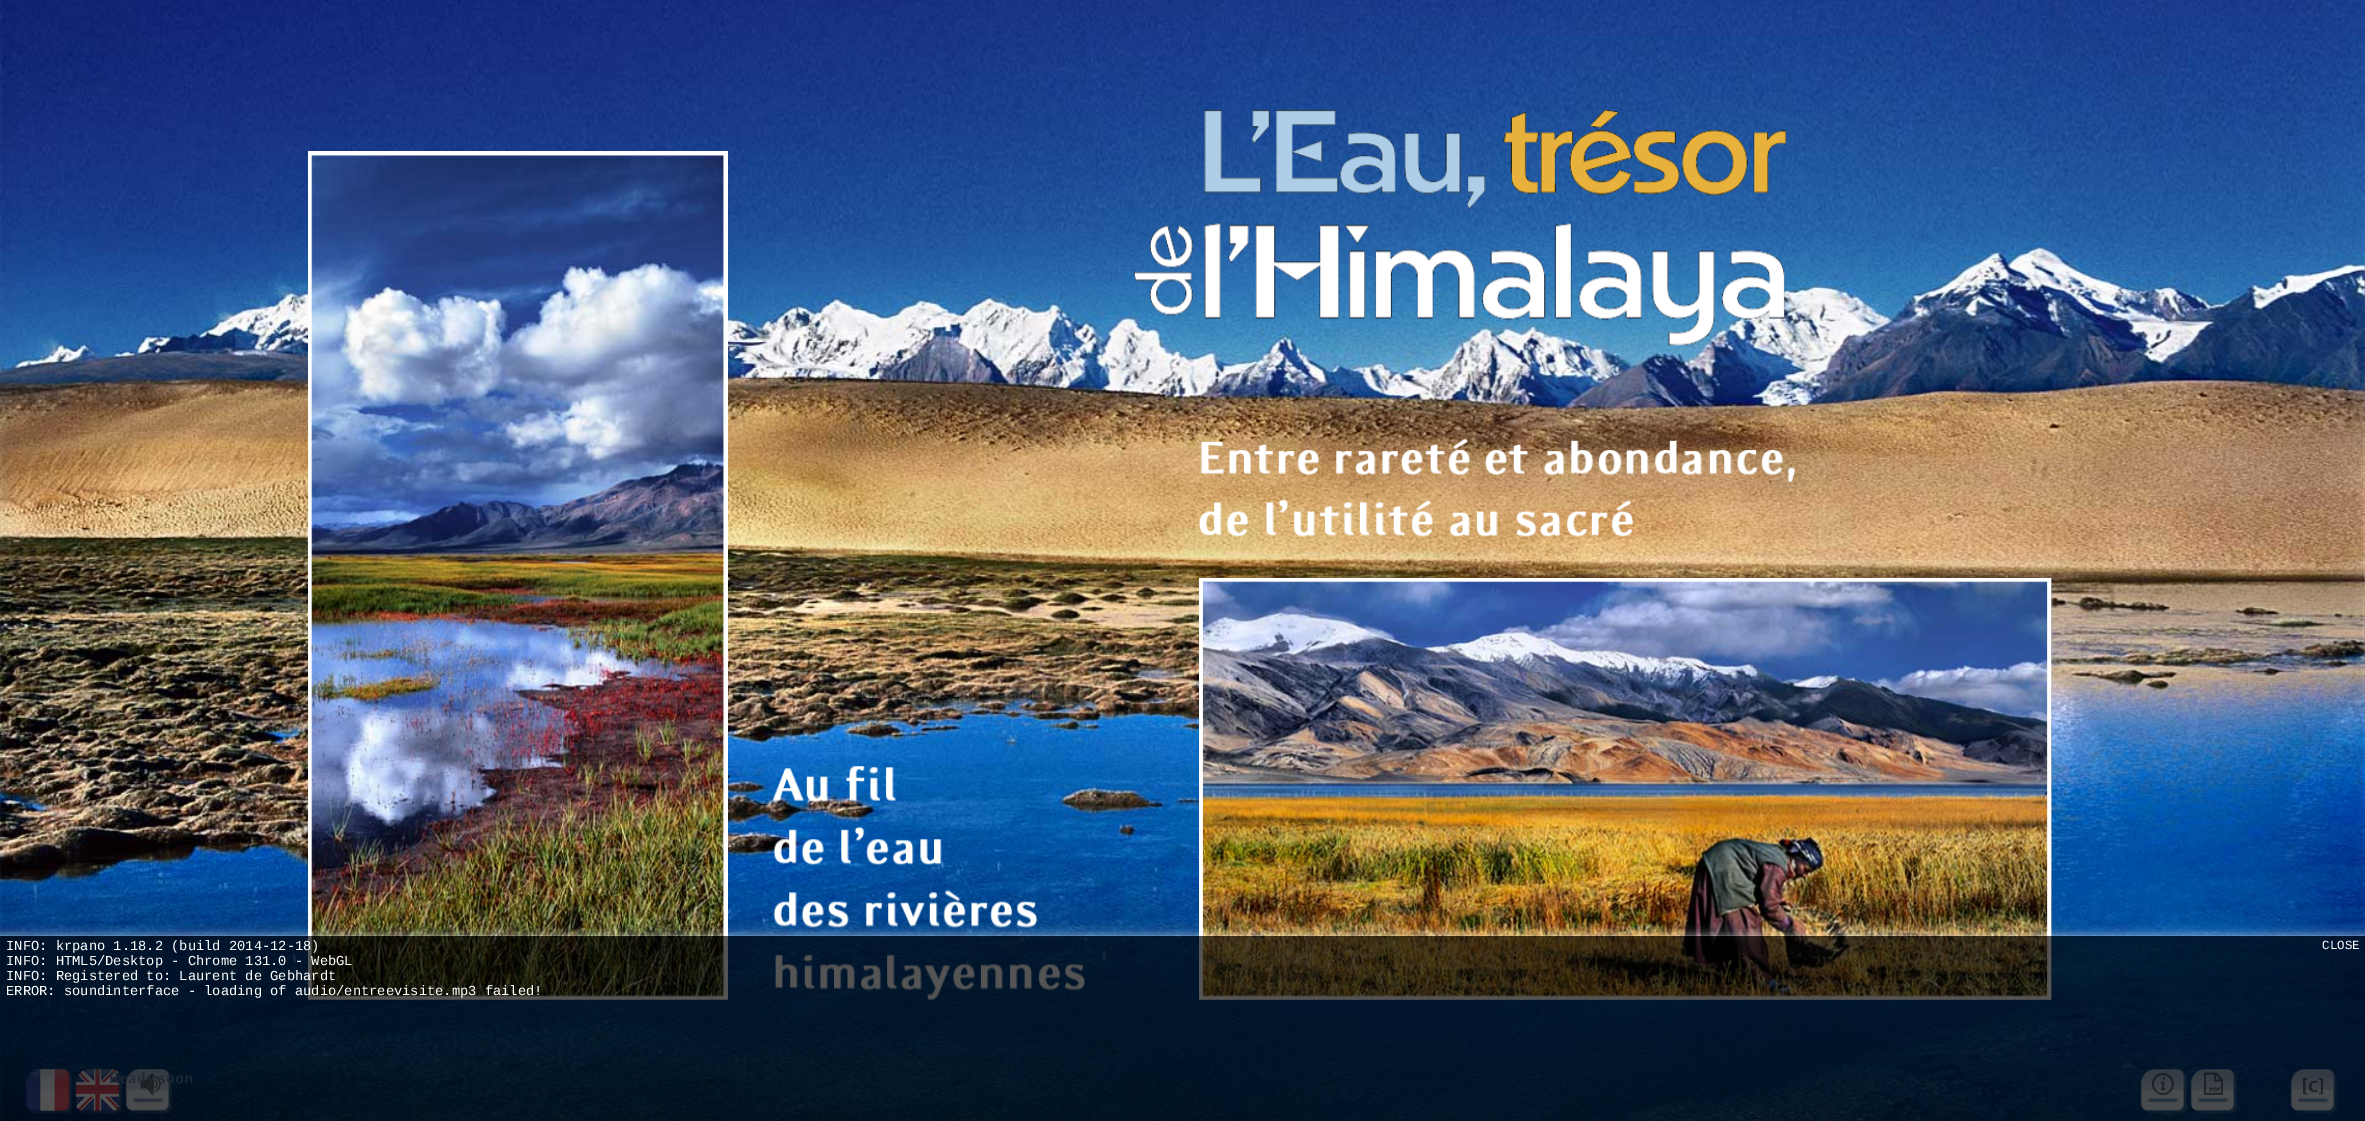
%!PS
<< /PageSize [2365 1121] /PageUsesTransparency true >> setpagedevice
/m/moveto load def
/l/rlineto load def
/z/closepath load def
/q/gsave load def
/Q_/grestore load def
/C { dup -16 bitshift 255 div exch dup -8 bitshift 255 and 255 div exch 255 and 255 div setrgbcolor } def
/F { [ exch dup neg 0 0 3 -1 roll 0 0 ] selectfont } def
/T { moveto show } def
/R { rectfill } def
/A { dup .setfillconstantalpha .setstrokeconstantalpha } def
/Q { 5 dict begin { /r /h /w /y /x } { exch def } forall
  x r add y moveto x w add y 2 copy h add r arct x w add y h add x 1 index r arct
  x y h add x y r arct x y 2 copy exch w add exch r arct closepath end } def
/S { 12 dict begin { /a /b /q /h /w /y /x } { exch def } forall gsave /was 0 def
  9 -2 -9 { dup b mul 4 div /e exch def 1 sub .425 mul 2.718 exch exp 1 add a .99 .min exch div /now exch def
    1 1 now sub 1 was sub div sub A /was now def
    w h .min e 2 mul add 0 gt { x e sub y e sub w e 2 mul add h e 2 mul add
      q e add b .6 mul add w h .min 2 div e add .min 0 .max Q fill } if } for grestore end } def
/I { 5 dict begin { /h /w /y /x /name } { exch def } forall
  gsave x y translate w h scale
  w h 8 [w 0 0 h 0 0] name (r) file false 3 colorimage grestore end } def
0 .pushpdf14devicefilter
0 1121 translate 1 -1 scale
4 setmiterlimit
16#FFFFFF C
0 0 2365 1121 R
(15.rgb) 2364 0 1 1121 I
(1.rgb) 0 0 2365 1121 I
(4.rgb) 308 155 420 845 I
(2.rgb) 308 151 420 849 I
(6.rgb) 1199 578 853 422 I
(7.rgb) 772 766 313 234 I
(8.rgb) 1199 578 853 422 I
(9.rgb) 25 1068 48 46 I
(10.rgb) 75 1068 48 46 I
(11.rgb) 125 1069 48 45 I
(12.rgb) 2140 1069 48 45 I
(13.rgb) 2190 1069 48 45 I
(14.rgb) 2290 1069 48 45 I
q
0 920 m 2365 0 l 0 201 l -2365 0 l z 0 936 m 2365 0 l 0 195 l -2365 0 l z eoclip newpath
0 936 2365 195 0 5 .67 S
Q_
/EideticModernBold-Bold 17.5 F
16#5D789A C
(Ready soon) 109 1083 T
0.67 A
16#000000 C
0 936 2365 185 R
/LiberationMono-Regular 13.75 F
1 A
16#FFFFFF C
(INFO: krpano 1.18.2 \(build 2014-12-18\)) 6 950 T
(INFO: HTML5/Desktop - Chrome 131.0 - WebGL) 6 965 T
(INFO: Registered to: Laurent de Gebhardt) 6 980 T
(ERROR: soundinterface - loading of audio/entreevisite.mp3 failed!) 6 995 T
/LiberationMono-Regular 12.5 F
(CLOSE) 2322 949 T
(3.rgb) 1134 110 652 236 I
(5.rgb) 1199 439 596 98 I
.poppdf14devicefilter showpage
